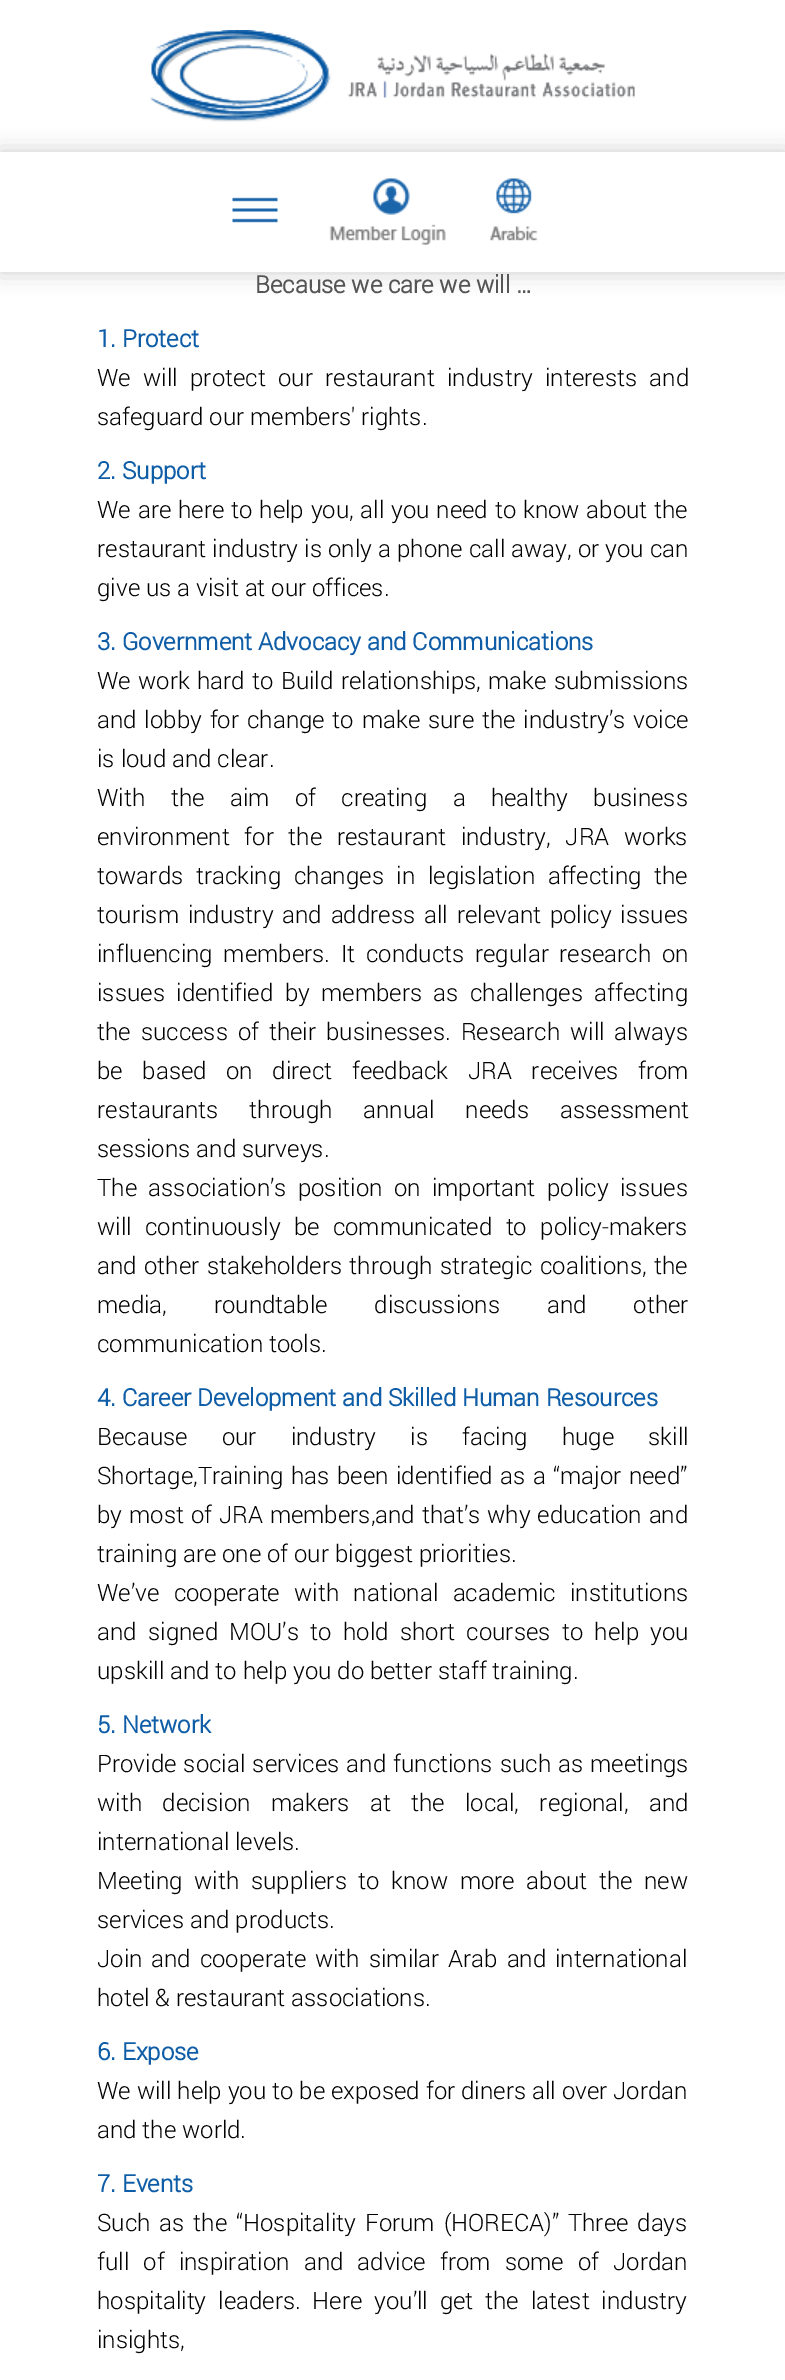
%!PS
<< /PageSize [785 2380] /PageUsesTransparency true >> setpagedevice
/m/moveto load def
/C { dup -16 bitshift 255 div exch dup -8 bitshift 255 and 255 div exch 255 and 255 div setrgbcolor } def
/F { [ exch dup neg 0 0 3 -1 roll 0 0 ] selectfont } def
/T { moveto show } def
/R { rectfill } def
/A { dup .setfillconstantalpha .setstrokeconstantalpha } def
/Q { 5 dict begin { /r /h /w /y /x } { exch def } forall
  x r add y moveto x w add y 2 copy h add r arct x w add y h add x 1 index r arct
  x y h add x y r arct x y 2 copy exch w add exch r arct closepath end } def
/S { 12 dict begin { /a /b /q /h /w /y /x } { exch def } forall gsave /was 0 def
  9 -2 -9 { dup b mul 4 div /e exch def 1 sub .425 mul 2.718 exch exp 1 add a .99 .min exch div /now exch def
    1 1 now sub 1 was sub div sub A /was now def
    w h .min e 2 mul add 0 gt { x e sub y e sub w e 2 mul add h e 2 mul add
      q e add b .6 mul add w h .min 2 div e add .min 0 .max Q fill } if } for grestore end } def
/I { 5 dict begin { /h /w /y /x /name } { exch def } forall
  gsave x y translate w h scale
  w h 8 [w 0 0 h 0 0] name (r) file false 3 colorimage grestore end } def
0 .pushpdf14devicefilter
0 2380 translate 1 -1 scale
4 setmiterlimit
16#FFFFFF C
0 0 785 2380 R
(1.rgb) 150 30 485 92 I
16#000000 C
0 152 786 120 0 11 .2 S
16#FFFFFF C
0 152 785 120 R
(2.rgb) 232 197 46 26 I
(3.rgb) 329 178 117 67 I
(4.rgb) 490 178 48 63 I
/Roboto-Bold 24 F
16#555555 C
(Because we care we will …) 255 293 T
16#0F5DA6 C
(1. Protect) 97 347 T
/Roboto-Light 24 F
16#000000 C
97 386 m 6.5 0 32 (We will protect our restaurant industry interests and) widthshow
(safeguard our members' rights.) 97 425 T
/Roboto-Bold 24 F
16#0F5DA6 C
(2. Support) 97 479 T
/Roboto-Light 24 F
16#000000 C
97 518 m 1 0 32 (We are here to help you, all you need to know about the) widthshow
97 557 m .25 0 32 (restaurant industry is only a phone call away, or you can) widthshow
(give us a visit at our offices.) 97 596 T
/Roboto-Bold 24 F
16#0F5DA6 C
(3. Government Advocacy and Communications) 97 650 T
/Roboto-Light 24 F
16#000000 C
97 689 m 1.5 0 32 (We work hard to Build relationships, make submissions) widthshow
97 728 m 2 0 32 (and lobby for change to make sure the industry’s voice) widthshow
(is loud and clear.) 97 767 T
97 806 m 19.5 0 32 (With the aim of creating a healthy business) widthshow
97 845 m 8.75 0 32 (environment for the restaurant industry, JRA works) widthshow
97 884 m 6.75 0 32 (towards tracking changes in legislation affecting the) widthshow
97 923 m 3 0 32 (tourism industry and address all relevant policy issues) widthshow
97 962 m 4.75 0 32 (influencing members. It conducts regular research on) widthshow
97 1001 m 5.5 0 32 (issues identified by members as challenges affecting) widthshow
97 1040 m 4 0 32 (the success of their businesses. Research will always) widthshow
97 1079 m 13.75 0 32 (be based on direct feedback JRA receives from) widthshow
97 1118 m 25 0 32 (restaurants through annual needs assessment) widthshow
(sessions and surveys.) 97 1157 T
97 1196 m 5.5 0 32 (The association’s position on important policy issues) widthshow
97 1235 m 7.5 0 32 (will continuously be communicated to policy-makers) widthshow
97 1274 m 1.5 0 32 (and other stakeholders through strategic coalitions, the) widthshow
97 1313 m 41 0 32 (media, roundtable discussions and other) widthshow
(communication tools.) 97 1352 T
/Roboto-Bold 24 F
16#0F5DA6 C
(4. Career Development and Skilled Human Resources) 97 1406 T
/Roboto-Light 24 F
16#000000 C
97 1445 m 28.25 0 32 (Because our industry is facing huge skill) widthshow
97 1484 m 1.5 0 32 (Shortage,Training has been identified as a “major need”) widthshow
97 1523 m 1 0 32 (by most of JRA members,and that’s why education and) widthshow
(training are one of our biggest priorities.) 97 1562 T
97 1601 m 8.5 0 32 (We’ve cooperate with national academic institutions) widthshow
97 1640 m 5.5 0 32 (and signed MOU’s to hold short courses to help you) widthshow
(upskill and to help you do better staff training.) 97 1679 T
/Roboto-Bold 24 F
16#0F5DA6 C
(5. Network) 97 1733 T
/Roboto-Light 24 F
16#000000 C
97 1772 m 1.25 0 32 (Provide social services and functions such as meetings) widthshow
97 1811 m 14.5 0 32 (with decision makers at the local, regional, and) widthshow
(international levels.) 97 1850 T
97 1889 m 5.75 0 32 (Meeting with suppliers to know more about the new) widthshow
(services and products.) 97 1928 T
97 1967 m 3 0 32 (Join and cooperate with similar Arab and international) widthshow
(hotel & restaurant associations.) 97 2006 T
/Roboto-Bold 24 F
16#0F5DA6 C
(6. Expose) 97 2060 T
/Roboto-Light 24 F
16#000000 C
97 2099 m .1 0 32 (We will help you to be exposed for diners all over Jordan) widthshow
(and the world.) 97 2138 T
/Roboto-Bold 24 F
16#0F5DA6 C
(7. Events) 97 2192 T
/Roboto-Light 24 F
16#000000 C
97 2231 m 3 0 32 (Such as the “Hospitality Forum \(HORECA\)” Three days) widthshow
97 2270 m 8.25 0 32 (full of inspiration and advice from some of Jordan) widthshow
97 2309 m 6 0 32 (hospitality leaders. Here you’ll get the latest industry) widthshow
(insights,) 97 2348 T
.poppdf14devicefilter showpage
